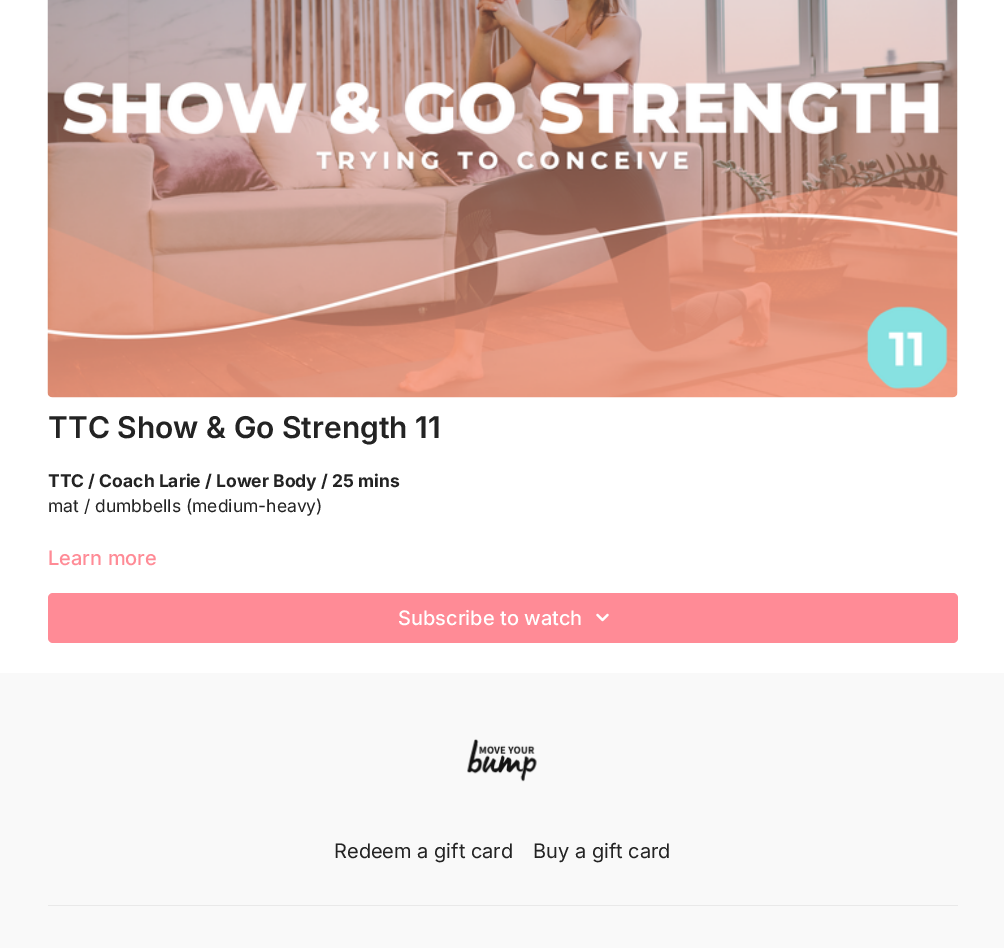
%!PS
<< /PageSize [1004 948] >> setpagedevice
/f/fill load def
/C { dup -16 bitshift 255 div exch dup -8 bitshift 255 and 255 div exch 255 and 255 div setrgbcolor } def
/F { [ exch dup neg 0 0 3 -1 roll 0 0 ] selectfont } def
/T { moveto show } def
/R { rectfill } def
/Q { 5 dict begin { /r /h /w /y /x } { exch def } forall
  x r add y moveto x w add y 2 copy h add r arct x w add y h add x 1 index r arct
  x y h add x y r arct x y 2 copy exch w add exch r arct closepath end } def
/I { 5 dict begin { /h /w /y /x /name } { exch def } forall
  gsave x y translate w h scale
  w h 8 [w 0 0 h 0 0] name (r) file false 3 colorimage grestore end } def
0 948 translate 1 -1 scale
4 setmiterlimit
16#FFFFFF C
0 0 1004 948 R
(1.rgb) 47 0 911 398 I
/Inter-SemiBold 30 F
16#232323 C
(TTC Show & Go Strength 11) 48 438 T
/Inter-Bold 17.5 F
(TTC / Coach Larie / Lower Body / 25 mins) 48 487 T
/Inter-Regular 17.5 F
(mat / dumbbells \(medium-heavy\)) 48 512 T
/Inter-Medium 20 F
16#FF8B96 C
(Learn more) 48 565 T
48 593 910 50 5 Q f
16#FFFFFF C
(Subscribe to watch) 398 625 T
(2.rgb) 596 613 13 9 I
16#F9F9F9 C
0 673 1004 275 R
(3.rgb) 467 739 70 43 I
/Inter-Regular 20 F
16#232323 C
(Redeem a gift card) 334 858 T
(Buy a gift card) 533 858 T
16#E9E9E9 C
48 905 910 1 R
showpage
